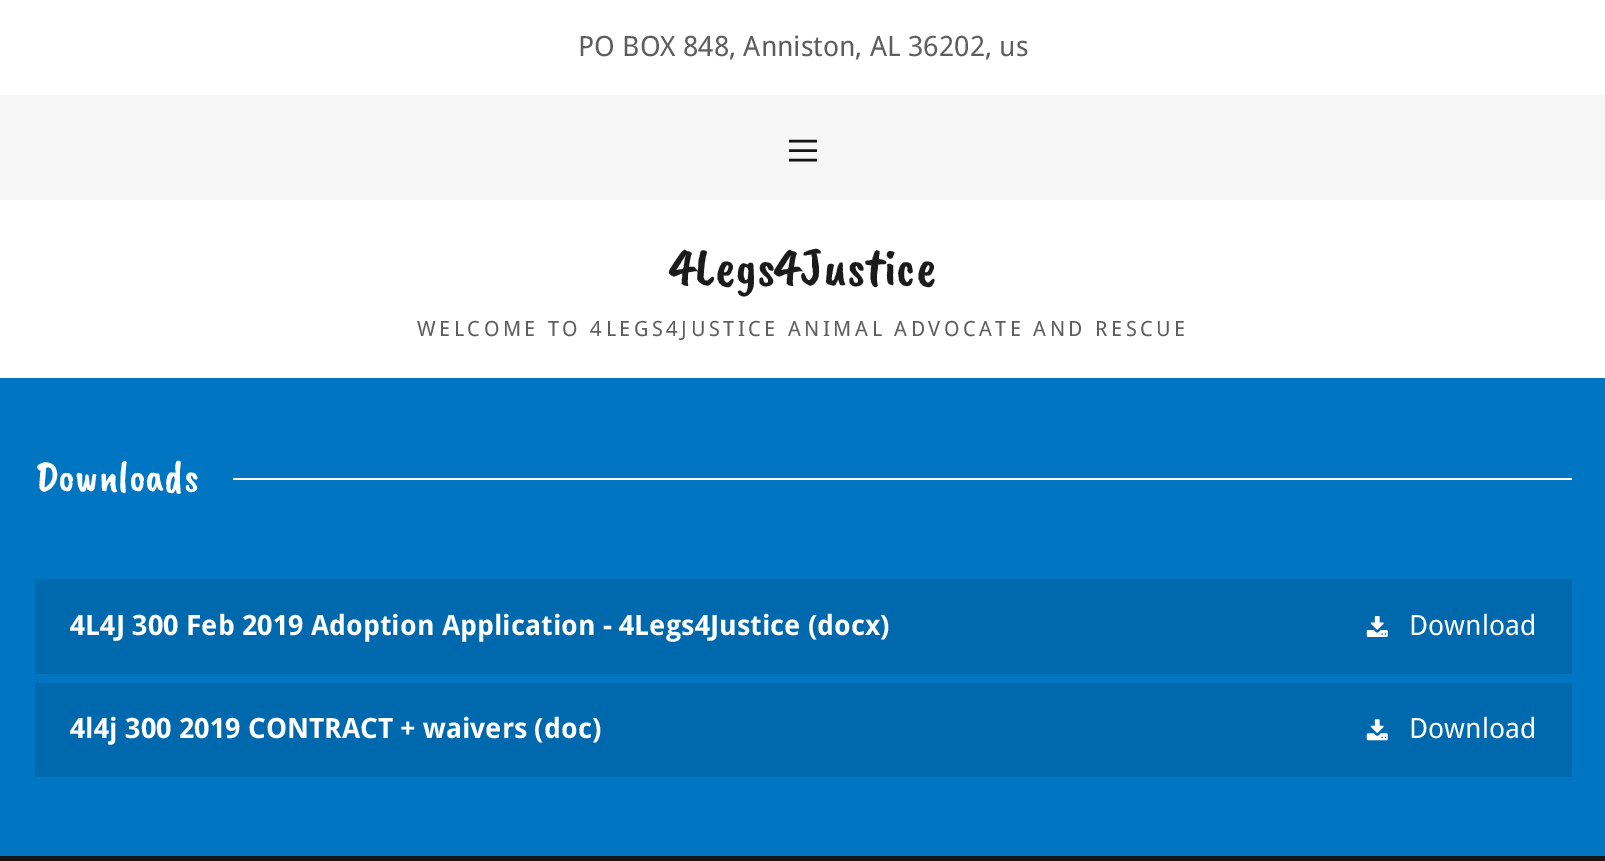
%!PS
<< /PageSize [1605 861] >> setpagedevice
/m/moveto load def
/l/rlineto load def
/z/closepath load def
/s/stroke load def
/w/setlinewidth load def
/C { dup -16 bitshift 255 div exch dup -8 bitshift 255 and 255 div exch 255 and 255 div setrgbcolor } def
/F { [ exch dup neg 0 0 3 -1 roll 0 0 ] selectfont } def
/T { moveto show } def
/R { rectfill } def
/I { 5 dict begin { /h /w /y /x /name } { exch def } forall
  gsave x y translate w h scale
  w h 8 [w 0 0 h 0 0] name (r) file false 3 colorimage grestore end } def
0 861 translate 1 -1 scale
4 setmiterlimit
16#161616 C
0 0 1605 861 R
16#FFFFFF C
0 0 1605 378 R
/DroidSans-Regular 28 F
16#5E5E5E C
(PO BOX 848, Anniston, AL 36202, us) 578 56 T
16#F6F6F6 C
0 95 1605 105 R
16#151515 C
2.6 w
2 setlinecap
789 141 m 28 0 l z 789 150.5 m 28 0 l z 789 160 m 28 0 l z s
/CaveatBrush-Regular 54.25 F
16#1B1B1B C
(4Legs4Justice) 670 285 T
/DroidSans-Regular 21 F
16#5E5E5E C
417 336 m 3.5 0 (WELCOME TO 4LEGS4JUSTICE ANIMAL ADVOCATE AND RESCUE) ashow
16#0075C1 C
0 378 1605 478 R
/CaveatBrush-Regular 44 F
16#FFFFFF C
(Downloads) 35 491 T
233 478 1339 2 R
16#0068AD C
35 579 1537 95 R
/DroidSans-Bold 28 F
16#FFFFFF C
(4L4J 300 Feb 2019 Adoption Application - 4Legs4Justice \(docx\)) 70 635 T
(1.rgb) 1366 616 22 21 I
/DroidSans-Regular 28 F
(Download) 1409 635 T
16#0068AD C
35 683 1537 94 R
/DroidSans-Bold 28 F
16#FFFFFF C
(4l4j 300 2019 CONTRACT + waivers \(doc\)) 70 738 T
(2.rgb) 1366 719 22 22 I
/DroidSans-Regular 28 F
(Download) 1409 738 T
showpage
